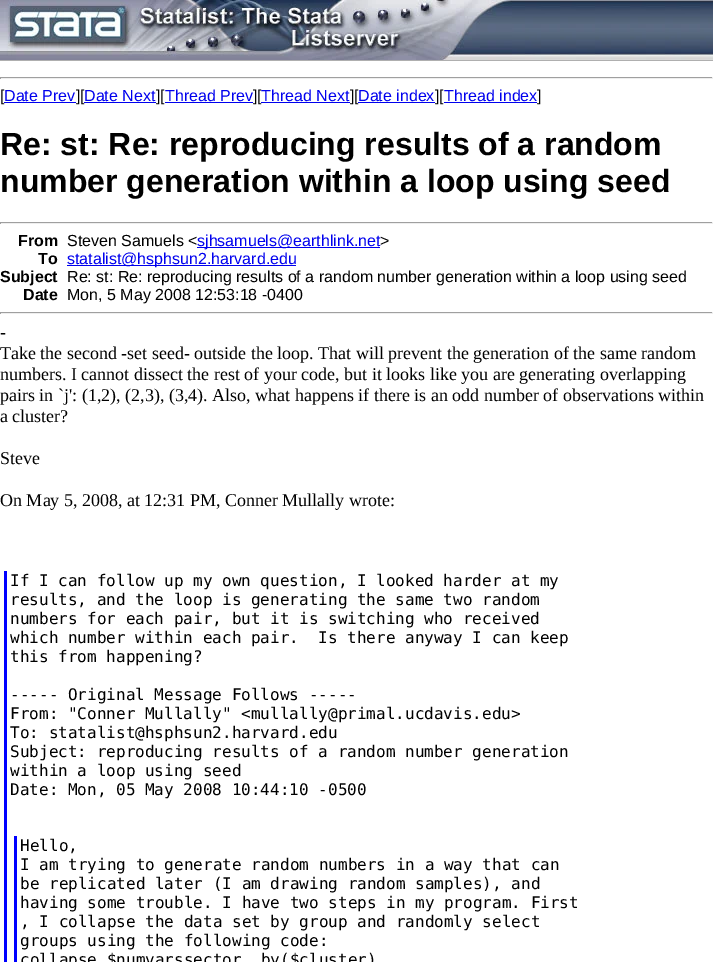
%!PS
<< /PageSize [713 962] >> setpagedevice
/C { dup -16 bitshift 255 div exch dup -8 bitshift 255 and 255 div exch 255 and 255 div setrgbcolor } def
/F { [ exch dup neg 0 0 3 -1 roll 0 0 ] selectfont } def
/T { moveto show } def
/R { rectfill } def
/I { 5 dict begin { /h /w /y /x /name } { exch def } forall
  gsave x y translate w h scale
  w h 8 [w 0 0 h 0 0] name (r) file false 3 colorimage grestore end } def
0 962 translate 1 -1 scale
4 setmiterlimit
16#FFFFFF C
0 0 713 962 R
(1.rgb) 512 0 201 60 I
16#AFAFAF C
0 60 713 1 R
(2.rgb) 0 0 512 60 I
16#9F9F9F C
0 77 713 1 R
16#EEEEEE C
712 77 1 2 R
0 78 713 1 R
16#9F9F9F C
0 77 1 2 R
/LiberationSans-Regular 16 F
16#000000 C
([) 0 101 T
16#0000EE C
(Date Prev) 4 101 T
4 102 72 1 R
16#000000 C
(][) 76 101 T
16#0000EE C
(Date Next) 84 101 T
84 102 72 1 R
16#000000 C
(][) 156 101 T
16#0000EE C
(Thread Prev) 165 101 T
165 102 88 1 R
16#000000 C
(][) 253 101 T
16#0000EE C
(Thread Next) 261 101 T
261 102 89 1 R
16#000000 C
(][) 350 101 T
16#0000EE C
(Date index) 358 101 T
358 102 77 1 R
16#000000 C
(][) 435 101 T
16#0000EE C
(Thread index) 444 101 T
444 102 93 1 R
16#000000 C
(]) 537 101 T
/LiberationSans-Bold 32 F
(Re: st: Re: reproducing results of a random) 0 155 T
(number generation within a loop using seed) 0 192 T
16#9F9F9F C
0 222 713 1 R
16#EEEEEE C
712 222 1 2 R
0 223 713 1 R
16#9F9F9F C
0 222 1 2 R
/LiberationSans-Bold 16 F
16#000000 C
(From) 18 246 T
/LiberationSans-Regular 16 F
(Steven Samuels <) 67 246 T
16#0000EE C
197 247 183 1 R
(sjhsamuels@earthlink.net) 197 246 T
16#000000 C
(>) 380 246 T
/LiberationSans-Bold 16 F
(To) 38 264 T
16#0000EE C
67 265 229 1 R
/LiberationSans-Regular 16 F
(statalist@hsphsun2.harvard.edu) 67 264 T
/LiberationSans-Bold 16 F
16#000000 C
(Subject) 0 282 T
/LiberationSans-Regular 16 F
(Re: st: Re: reproducing results of a random number generation within a loop using seed) 67 282 T
/LiberationSans-Bold 16 F
(Date) 23 300 T
/LiberationSans-Regular 16 F
(Mon, 5 May 2008 12:53:18 -0400) 67 300 T
16#9F9F9F C
0 312 713 1 R
16#EEEEEE C
712 312 1 2 R
0 313 713 1 R
16#9F9F9F C
0 312 1 2 R
/LiberationSerif-Regular 18 F
16#000000 C
(-) 0 338 T
(Take the second -set seed- outside the loop. That will prevent the generation of the same random) 0 359 T
(numbers. I cannot dissect the rest of your code, but it looks like you are generating overlapping) 0 380 T
(pairs in `j': \(1,2\), \(2,3\), \(3,4\). Also, what happens if there is an odd number of observations within) 0 401 T
(a cluster?) 0 422 T
(Steve) 0 464 T
(On May 5, 2008, at 12:31 PM, Conner Mullally wrote:) 0 506 T
16#0000FF C
4 571 3 391 R
/DejaVuSansMono-Regular 16 F
16#000000 C
(If I can follow up my own question, I looked harder at my) 10 586 T
(results, and the loop is generating the same two random) 10 605 T
(numbers for each pair, but it is switching who received) 10 624 T
(which number within each pair.  Is there anyway I can keep) 10 643 T
(this from happening?) 10 662 T
(----- Original Message Follows -----) 10 700 T
(From: "Conner Mullally" <mullally@primal.ucdavis.edu>) 10 719 T
(To: statalist@hsphsun2.harvard.edu) 10 738 T
(Subject: reproducing results of a random number generation) 10 757 T
(within a loop using seed) 10 776 T
(Date: Mon, 05 May 2008 10:44:10 -0500) 10 795 T
16#0000FF C
14 836 3 126 R
16#000000 C
(Hello,) 20 851 T
(I am trying to generate random numbers in a way that can) 20 870 T
(be replicated later \(I am drawing random samples\), and) 20 889 T
(having some trouble. I have two steps in my program. First) 20 908 T
(, I collapse the data set by group and randomly select) 20 927 T
(groups using the following code:) 20 946 T
(collapse $numvarssector, by\($cluster\)) 20 965 T
showpage
